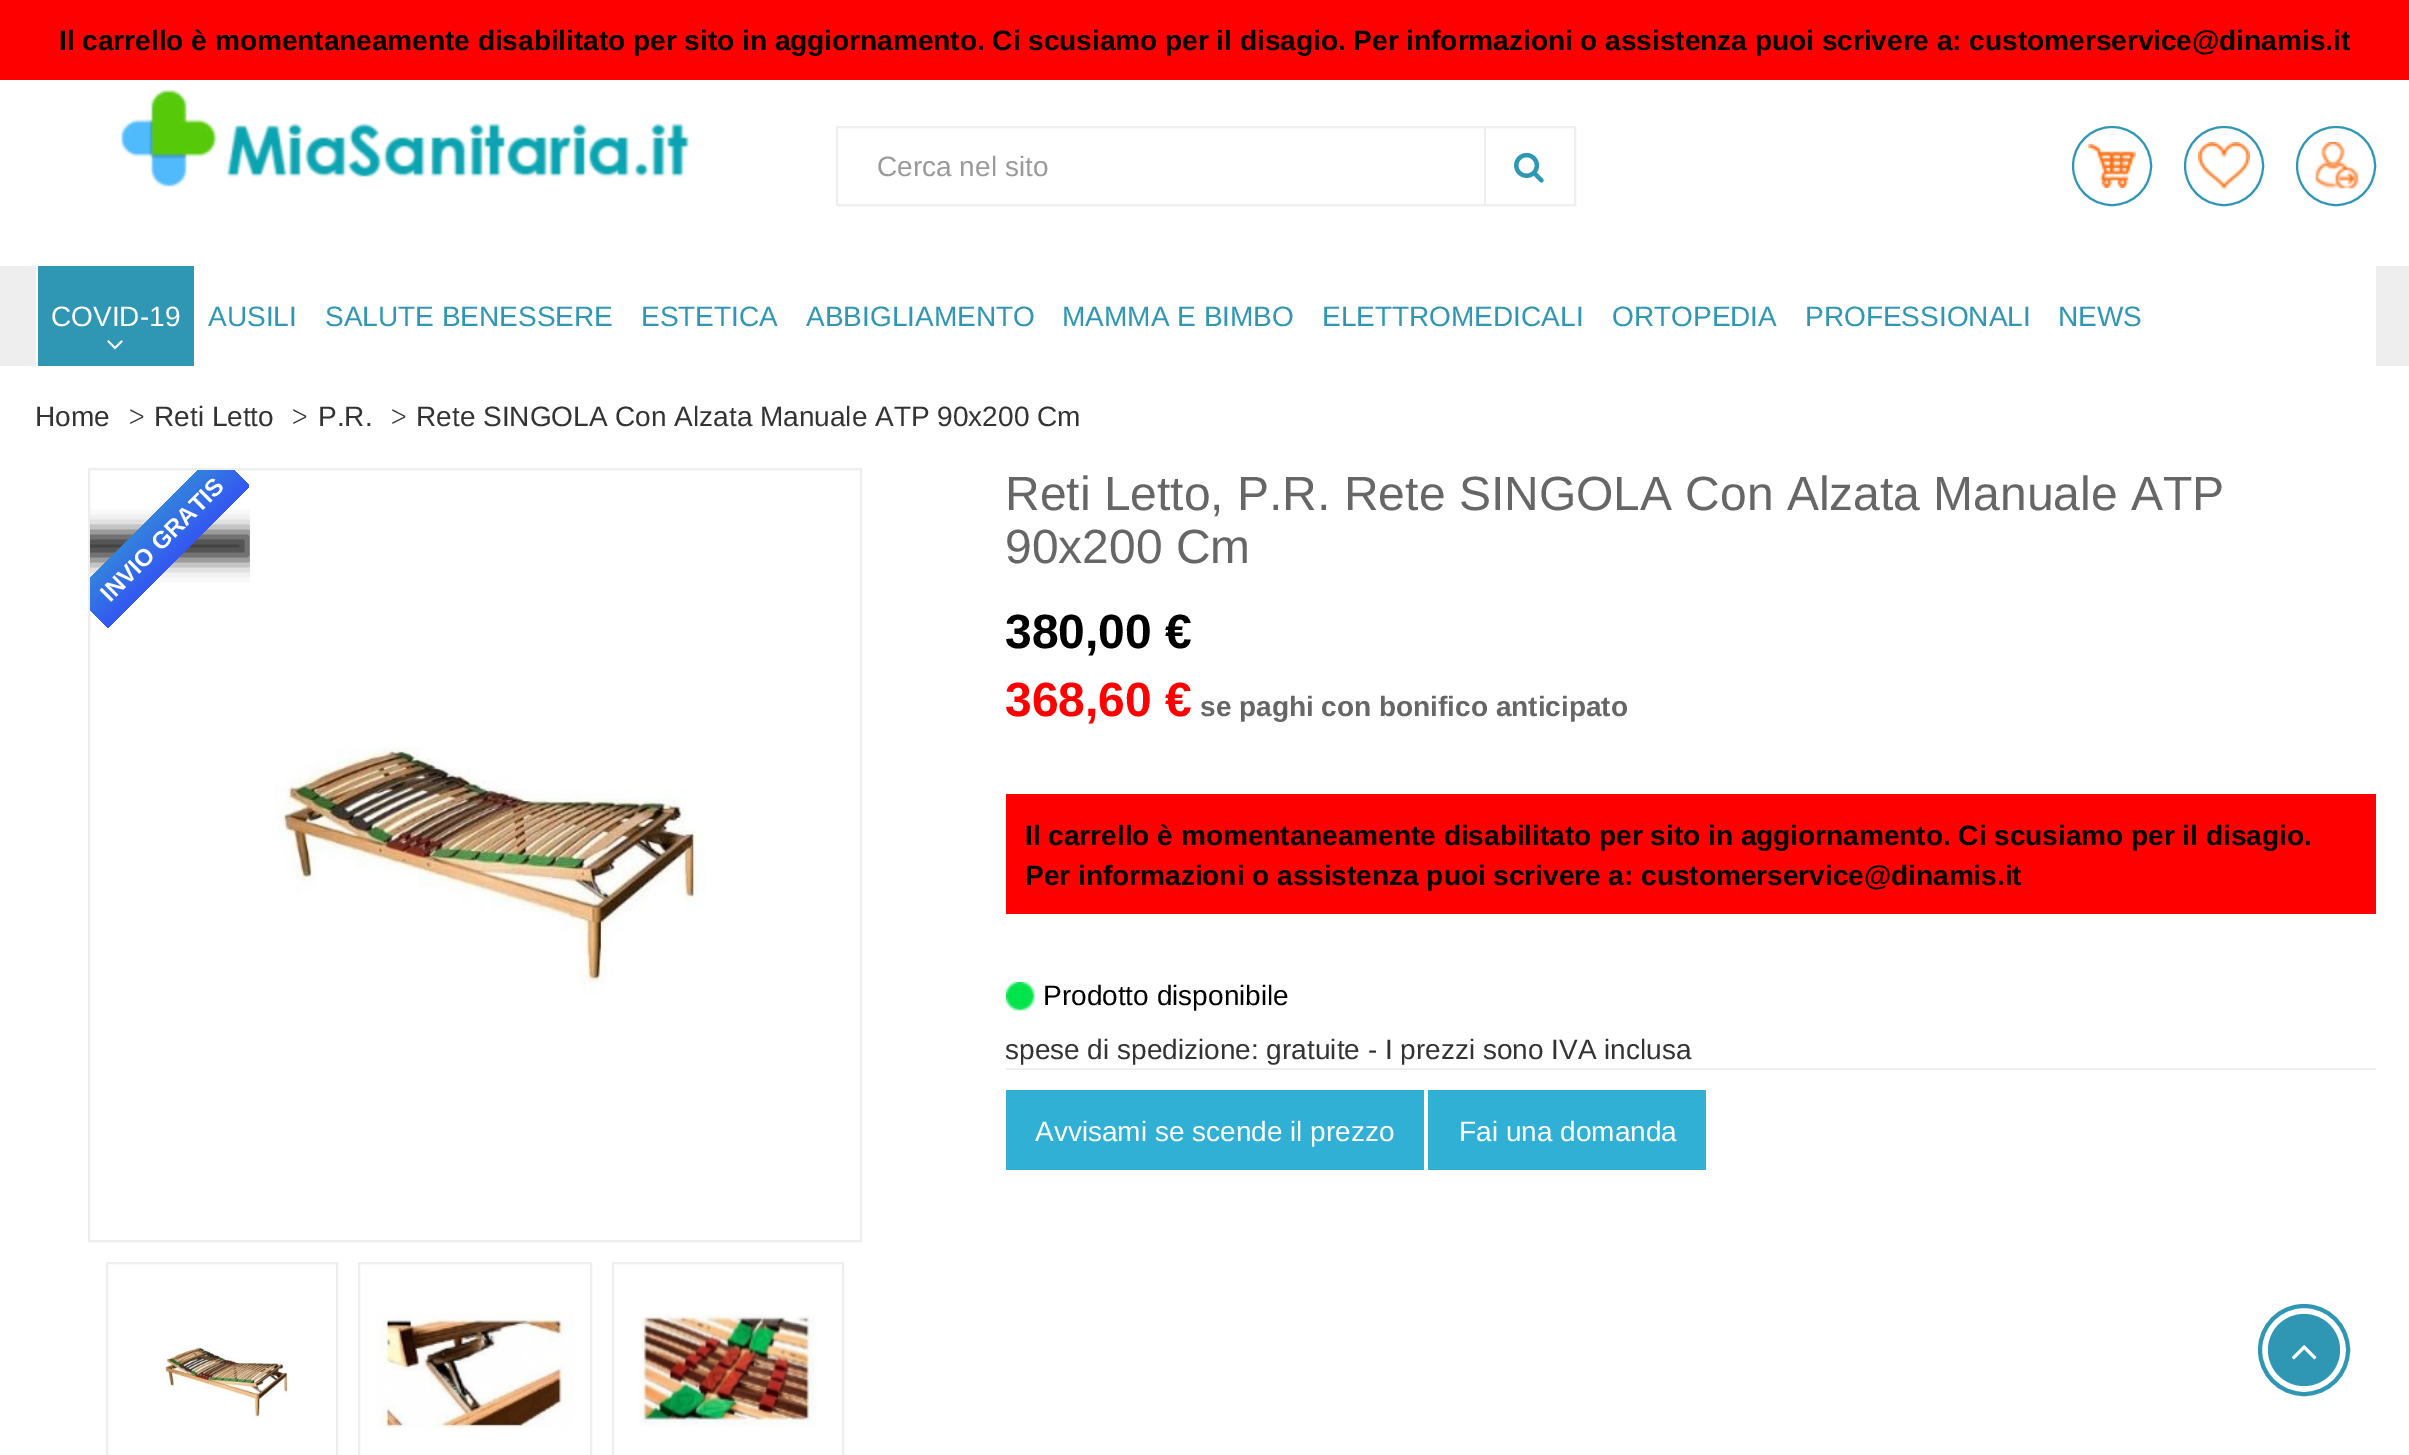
%!PS
<< /PageSize [2409 1455] /PageUsesTransparency true >> setpagedevice
/m/moveto load def
/l/rlineto load def
/z/closepath load def
/f/fill load def
/s/stroke load def
/q/gsave load def
/Q_/grestore load def
/w/setlinewidth load def
/C { dup -16 bitshift 255 div exch dup -8 bitshift 255 and 255 div exch 255 and 255 div setrgbcolor } def
/F { [ exch dup neg 0 0 3 -1 roll 0 0 ] selectfont } def
/T { moveto show } def
/R { rectfill } def
/A { dup .setfillconstantalpha .setstrokeconstantalpha } def
/O { newpath 0 360 arc closepath } def
/Q { 5 dict begin { /r /h /w /y /x } { exch def } forall
  x r add y moveto x w add y 2 copy h add r arct x w add y h add x 1 index r arct
  x y h add x y r arct x y 2 copy exch w add exch r arct closepath end } def
/S { 12 dict begin { /a /b /q /h /w /y /x } { exch def } forall gsave /was 0 def
  9 -2 -9 { dup b mul 4 div /e exch def 1 sub .425 mul 2.718 exch exp 1 add a .99 .min exch div /now exch def
    1 1 now sub 1 was sub div sub A /was now def
    w h .min e 2 mul add 0 gt { x e sub y e sub w e 2 mul add h e 2 mul add
      q e add b .6 mul add w h .min 2 div e add .min 0 .max Q fill } if } for grestore end } def
/I { 5 dict begin { /h /w /y /x /name } { exch def } forall
  gsave x y translate w h scale
  w h 8 [w 0 0 h 0 0] name (r) file false 3 colorimage grestore end } def
0 .pushpdf14devicefilter
0 1455 translate 1 -1 scale
4 setmiterlimit
16#FFFFFF C
0 0 2409 1455 R
16#FF0000 C
0 0 2409 80 R
/LiberationSans-Bold 28 F
16#000000 C
(Il carrello è momentaneamente disabilitato per sito in aggiornamento. Ci scusiamo per il disagio. Per informazioni o assistenza puoi scrivere a: customerservice@dinamis.it) 59 50 T
(1.rgb) 121 90 570 98 I
16#EEEEEE C
2 w
837 127 738 78 rectstroke
/LiberationSans-Regular 28 F
16#999999 C
(Cerca nel sito) 877 176 T
16#EEEEEE C
1484 206 m 0 -80 l 2 2 l 0 76 l z f
(2.rgb) 1514 152 30 31 I
(3.rgb) 2088 144 48 44 I
16#2F96B4 C
2112 166 39 O s
(4.rgb) 2198 142 52 48 I
2224 166 39 O s
(5.rgb) 2315 142 44 47 I
2336 166 39 O s
16#EEEEEE C
0 266 2409 100 R
16#FFFFFF C
36 266 2340 100 R
16#2F96B4 C
38 266 156 100 R
16#FFFFFF C
(COVID-19) 51 326 T
(6.rgb) 107 340 16 10 I
16#2F96B4 C
(AUSILI) 208 326 T
(SALUTE BENESSERE) 325 326 T
(ESTETICA) 641 326 T
(ABBIGLIAMENTO) 806 326 T
(MAMMA E BIMBO) 1062 326 T
(ELETTROMEDICALI) 1322 326 T
(ORTOPEDIA) 1612 326 T
(PROFESSIONALI) 1805 326 T
(NEWS) 2058 326 T
16#333333 C
(Home) 35 426 T
/LibreBaskerville-Regular 28 F
(>) 128 426 T
/LiberationSans-Regular 28 F
(Reti Letto) 154 426 T
/LibreBaskerville-Regular 28 F
(>) 291 426 T
/LiberationSans-Regular 28 F
(P.R.) 318 426 T
/LibreBaskerville-Regular 28 F
(>) 390 426 T
/LiberationSans-Regular 28 F
(Rete SINGOLA Con Alzata Manuale ATP 90x200 Cm) 416 426 T
16#EEEEEE C
89 469 772 772 rectstroke
q
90 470 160 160 rectclip
16#333333 C
72 532 180 28 0 10 1 S
Q_
q
90 470 160 160 rectclip
q 74 594 m 142 -142 l 33 34 l -141 142 l z clip newpath
<< /ShadingType 2 /ColorSpace /DeviceRGB /Coords [145 523 179 557] /Extend [true true] /Function << /FunctionType 2 /Domain [0 1] /C0 [.2 .51 .867] /C1 [.2 .341 .953] /N 1 >> >> shfill Q_
Q_
/LiberationSans-Bold 24 F
16#FFFFFF C
q 110 603 translate -45 rotate 0 0 m (INVIO GRATIS) show Q_
(7.rgb) 275 747 431 247 I
16#EEEEEE C
107 1263 230 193 rectstroke
(8.rgb) 163 1347 127 71 I
359 1263 232 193 rectstroke
(9.rgb) 375 1313 199 116 I
613 1263 230 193 rectstroke
(10.rgb) 639 1314 178 113 I
/LiberationSans-Regular 48 F
16#666666 C
(Reti Letto, P.R. Rete SINGOLA Con Alzata Manuale ATP) 1005 510 T
(90x200 Cm) 1005 563 T
/LiberationSans-Bold 48 F
16#000000 C
(380,00 €) 1005 648 T
16#FF0000 C
(368,60 €) 1005 716 T
/LiberationSans-Bold 28 F
16#666666 C
(se paghi con bonifico anticipato) 1200 716 T
16#FF0000 C
1006 794 1370 120 R
16#000000 C
(Il carrello è momentaneamente disabilitato per sito in aggiornamento. Ci scusiamo per il disagio.) 1025 845 T
(Per informazioni o assistenza puoi scrivere a: customerservice@dinamis.it) 1025 885 T
(11.rgb) 1006 982 29 29 I
/LiberationSans-Regular 28 F
(Prodotto disponibile) 1043 1005 T
16#333333 C
(spese di spedizione: gratuite - I prezzi sono IVA inclusa) 1005 1059 T
16#EEEEEE C
1006 1068 1370 2 R
16#31B0D5 C
1006 1090 418 80 R
16#FFFFFF C
(Avvisami se scende il prezzo) 1035 1141 T
16#31B0D5 C
1428 1090 278 80 R
16#FFFFFF C
(Fai una domanda) 1459 1141 T
16#2F96B4 C
4 w
2304 1350 44 O s
2304 1350 36 O f
(12.rgb) 2291 1345 26 15 I
.poppdf14devicefilter showpage
